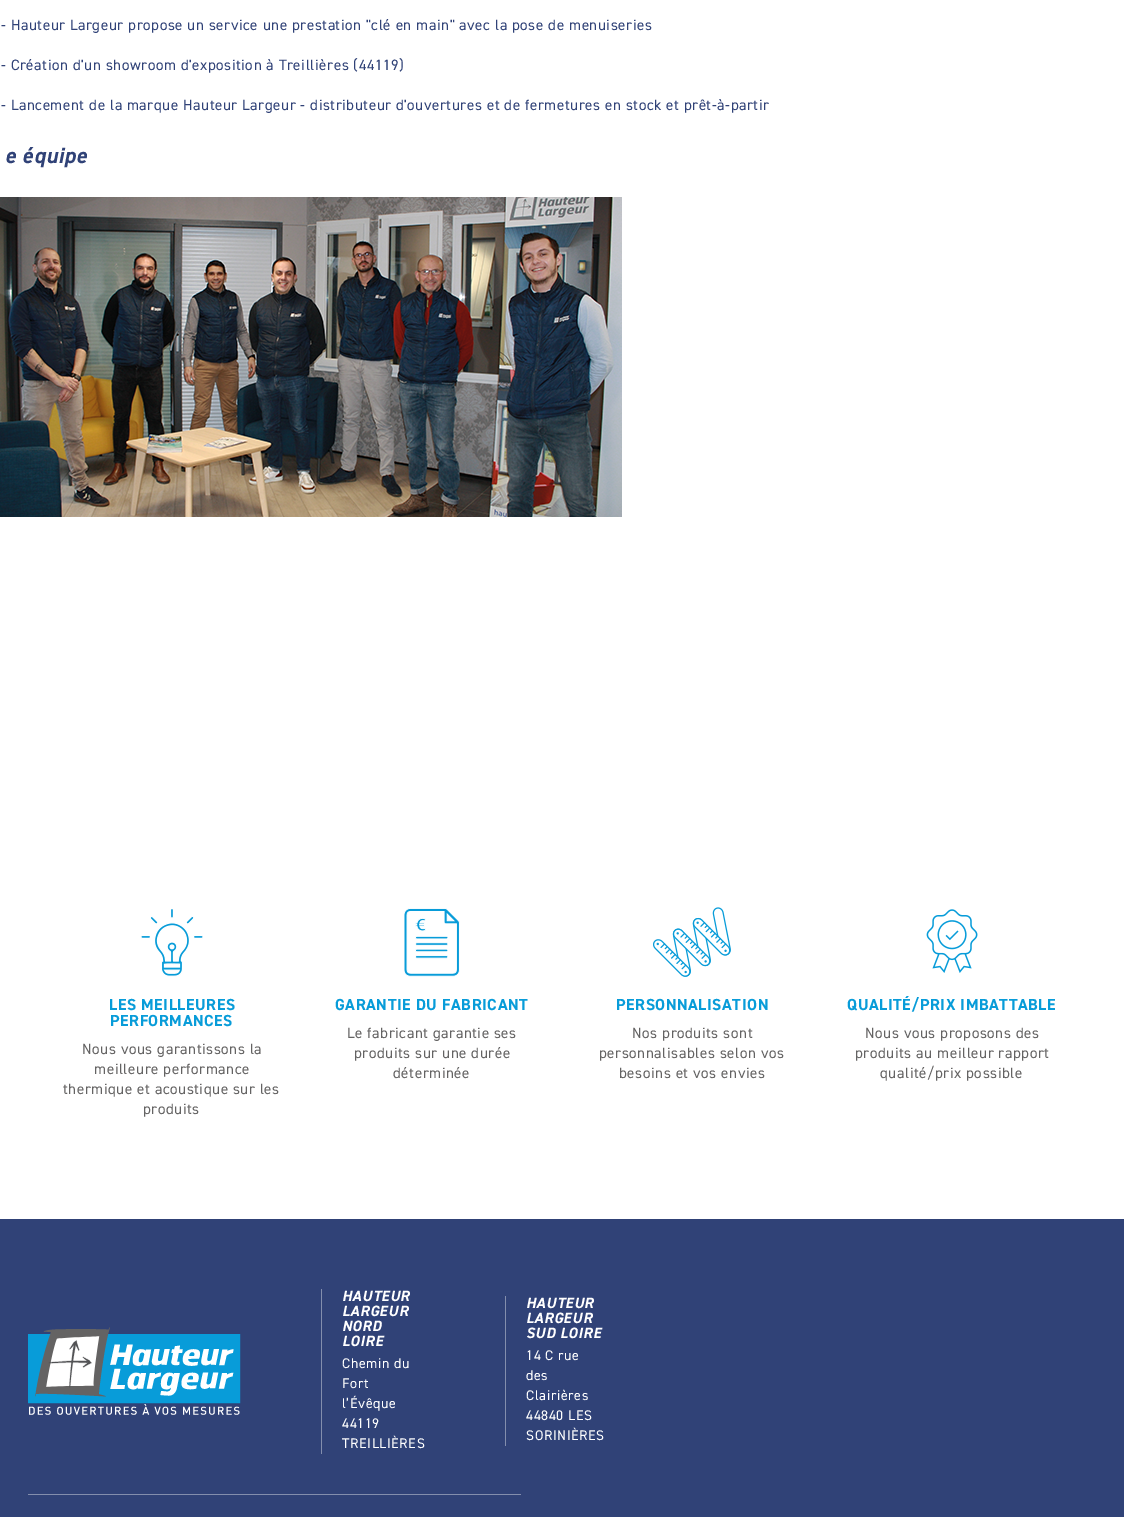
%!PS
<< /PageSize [1124 1517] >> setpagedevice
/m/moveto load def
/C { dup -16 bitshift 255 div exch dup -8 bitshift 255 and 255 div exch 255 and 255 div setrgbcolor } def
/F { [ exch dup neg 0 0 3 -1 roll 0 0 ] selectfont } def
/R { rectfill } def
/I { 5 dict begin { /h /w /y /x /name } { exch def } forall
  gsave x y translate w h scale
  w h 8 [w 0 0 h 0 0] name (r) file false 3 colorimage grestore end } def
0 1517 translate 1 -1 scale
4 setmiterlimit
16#FFFFFF C
0 0 1124 1517 R
/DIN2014-Regular 15 F
16#304277 C
1 30 m .6 0 (- Hauteur Largeur propose un service une prestation "clé en main" avec la pose de menuiseries) ashow
1 70 m .6 0 (- Création d'un showroom d'exposition à Treillières \(44119\)) ashow
1 110 m .6 0 (- Lancement de la marque Hauteur Largeur - distributeur d'ouvertures et de fermetures en stock et prêt-à-partir) ashow
/DIN2014-BoldItalic 22 F
5 163 m .6 0 (e équipe) ashow
(1.rgb) 0 197 622 320 I
(2.rgb) 140 909 63 68 I
/DIN2014-Bold 16 F
16#089CD9 C
109 1010 m .6 0 (LES MEILLEURES) ashow
110 1026 m .6 0 (PERFORMANCES) ashow
/DIN2014-Regular 15 F
16#646363 C
82 1054 m .6 0 (Nous vous garantissons la) ashow
94 1074 m .6 0 (meilleure performance) ashow
63 1094 m .6 0 (thermique et acoustique sur les) ashow
143 1114 m .6 0 (produits) ashow
(3.rgb) 404 908 56 69 I
/DIN2014-Bold 16 F
16#089CD9 C
335 1010 m .6 0 (GARANTIE DU FABRICANT) ashow
/DIN2014-Regular 15 F
16#646363 C
347 1038 m .6 0 (Le fabricant garantie ses) ashow
354 1058 m .6 0 (produits sur une durée) ashow
393 1078 m .6 0 (déterminée) ashow
(4.rgb) 653 907 78 70 I
/DIN2014-Bold 16 F
16#089CD9 C
616 1010 m .6 0 (PERSONNALISATION) ashow
/DIN2014-Regular 15 F
16#646363 C
632 1038 m .6 0 (Nos produits sont) ashow
599 1058 m .6 0 (personnalisables selon vos) ashow
619 1078 m .6 0 (besoins et vos envies) ashow
(5.rgb) 926 909 52 64 I
/DIN2014-Bold 16 F
16#089CD9 C
847 1010 m .6 0 (QUALITÉ/PRIX IMBATTABLE) ashow
/DIN2014-Regular 15 F
16#646363 C
865 1038 m .6 0 (Nous vous proposons des) ashow
855 1058 m .6 0 (produits au meilleur rapport) ashow
880 1078 m .6 0 (qualité/prix possible) ashow
16#304277 C
0 1219 1124 298 R
16#838EAD C
28 1494 493 1 R
(6.rgb) 28 1327 213 88 I
321 1289 1 165 R
/DIN2014-BoldItalic 15 F
16#FFFFFF C
342 1301 m .6 0 (HAUTEUR) ashow
342 1316 m .6 0 (LARGEUR) ashow
342 1331 m .6 0 (NORD) ashow
342 1346 m .6 0 (LOIRE) ashow
/DIN2014-Regular 14 F
342 1368 m .6 0 (Chemin du) ashow
342 1388 m .6 0 (Fort) ashow
342 1408 m .6 0 (l’Évêque) ashow
342 1428 m .6 0 (44119) ashow
342 1448 m .6 0 (TREILLIÈRES) ashow
16#838EAD C
505 1296 1 150 R
/DIN2014-BoldItalic 15 F
16#FFFFFF C
526 1308 m .6 0 (HAUTEUR) ashow
526 1323 m .6 0 (LARGEUR) ashow
526 1338 m .6 0 (SUD LOIRE) ashow
/DIN2014-Regular 14 F
526 1360 m .6 0 (14 C rue) ashow
526 1380 m .6 0 (des) ashow
526 1400 m .6 0 (Clairières) ashow
526 1420 m .6 0 (44840 LES) ashow
526 1440 m .6 0 (SORINIÈRES) ashow
showpage
